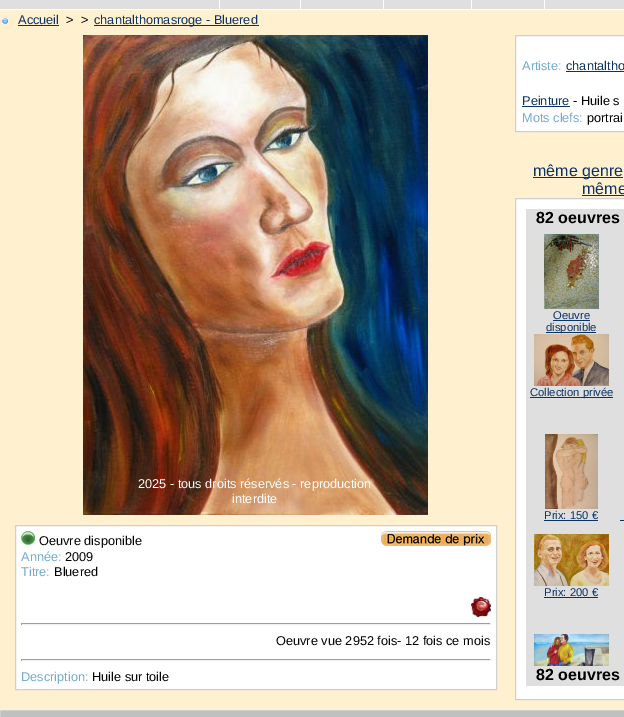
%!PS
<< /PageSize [624 717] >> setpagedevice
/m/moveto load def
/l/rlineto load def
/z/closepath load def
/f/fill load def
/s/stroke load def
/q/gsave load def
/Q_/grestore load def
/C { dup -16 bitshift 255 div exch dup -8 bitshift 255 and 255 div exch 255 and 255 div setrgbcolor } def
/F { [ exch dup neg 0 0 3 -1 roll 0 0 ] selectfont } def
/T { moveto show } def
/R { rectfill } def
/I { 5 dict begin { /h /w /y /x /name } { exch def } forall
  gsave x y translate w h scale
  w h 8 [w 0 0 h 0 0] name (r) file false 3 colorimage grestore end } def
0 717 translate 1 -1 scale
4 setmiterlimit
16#FFFFFF C
0 0 624 717 R
(1.rgb) 0 9 624 1 I
16#DFDFDF C
0 0 624 9 R
16#FFFFFF C
219 0 1 9 R
300 0 1 9 R
383 0 1 9 R
471 0 1 9 R
544 0 1 9 R
16#FFF0CF C
0 10 624 700 R
(2.rgb) 2 18 6 6 I
/LiberationSans-Regular 12.75 F
16#0A3263 C
(Accueil) 18 24 T
18 25 41 1 R
16#000000 C
(>) 66 24 T
(>) 81 24 T
16#0A3263 C
94 25 165 1 R
(chantalthomasroge - Bluered) 94 24 T
(3.rgb) 83 35 345 480 I
16#FFFFFF C
(2025 - tous droits réservés - reproduction) 138 488 T
(interdite) 232 503 T
15.5 525.5 m 481 0 l 0 164 l -481 0 l z q f Q_
16#CFCFCF C
s
(4.rgb) 21 531 14 14 I
16#000000 C
(Oeuvre disponible) 39 545 T
(5.rgb) 381 531 110 15 I
16#74AACF C
(Année:) 21 561 T
16#000000 C
(2009) 65 561 T
16#74AACF C
(Titre:) 21 576 T
16#000000 C
(Bluered) 54 576 T
(6.rgb) 471 597 20 20 I
16#9F9F9F C
21 623 470 1 R
16#EEEEEE C
490 623 1 2 R
21 624 470 1 R
16#9F9F9F C
21 623 1 2 R
16#000000 C
(Oeuvre vue 2952 fois- 12 fois ce mois) 276 645 T
16#9F9F9F C
21 659 470 1 R
16#EEEEEE C
490 659 1 2 R
21 660 470 1 R
16#9F9F9F C
21 659 1 2 R
16#74AACF C
(Description:) 21 681 T
16#000000 C
(Huile sur toile) 92 681 T
16#FFFFFF C
515.5 35.5 m 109 0 l 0 96 l -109 0 l z q f Q_
16#CFCFCF C
s
16#74AACF C
(Artiste:) 522 70 T
16#0A3263 C
(chantaltho) 566 70 T
566 71 58 1 R
(Peinture) 522 105 T
522 106 48 1 R
16#000000 C
(- Huile s) 573 105 T
16#74AACF C
(Mots clefs:) 522 122 T
16#000000 C
(portrai) 587 122 T
16#0A3263 C
533 177 90 1 R
/LiberationSans-Regular 16 F
(même genre) 533 176 T
(même) 582 194 T
582 195 42 1 R
16#FFFFFF C
515.5 198.5 m 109 0 l 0 501 l -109 0 l z q f Q_
16#CFCFCF C
s
16#DFDFDF C
526 209 98 20 R
/LiberationSans-Bold 16 F
16#000000 C
(82 oeuvres) 536 223 T
16#DFDFDF C
526 229 98 457 R
(7.rgb) 544 234 55 75 I
/LiberationSans-Regular 11.25 F
16#0A3263 C
(Oeuvre) 553 319 T
553 320 37 1 R
546 332 50 1 R
(disponible) 546 331 T
(8.rgb) 534 334 75 52 I
530 397 83 1 R
(Collection privée) 530 396 T
(9.rgb) 545 434 53 75 I
(Prix: 150 €) 544 519 T
544 520 54 1 R
620 520 4 1 R
(10.rgb) 534 534 75 52 I
(Prix: 200 €) 544 596 T
544 597 54 1 R
(11.rgb) 534 634 75 32 I
/LiberationSans-Bold 16 F
16#000000 C
(82 oeuvres) 536 680 T
16#CFCFCF C
.5 710.5 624 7 rectstroke
16#C0C0C0 C
1 711 623 6 R
showpage
